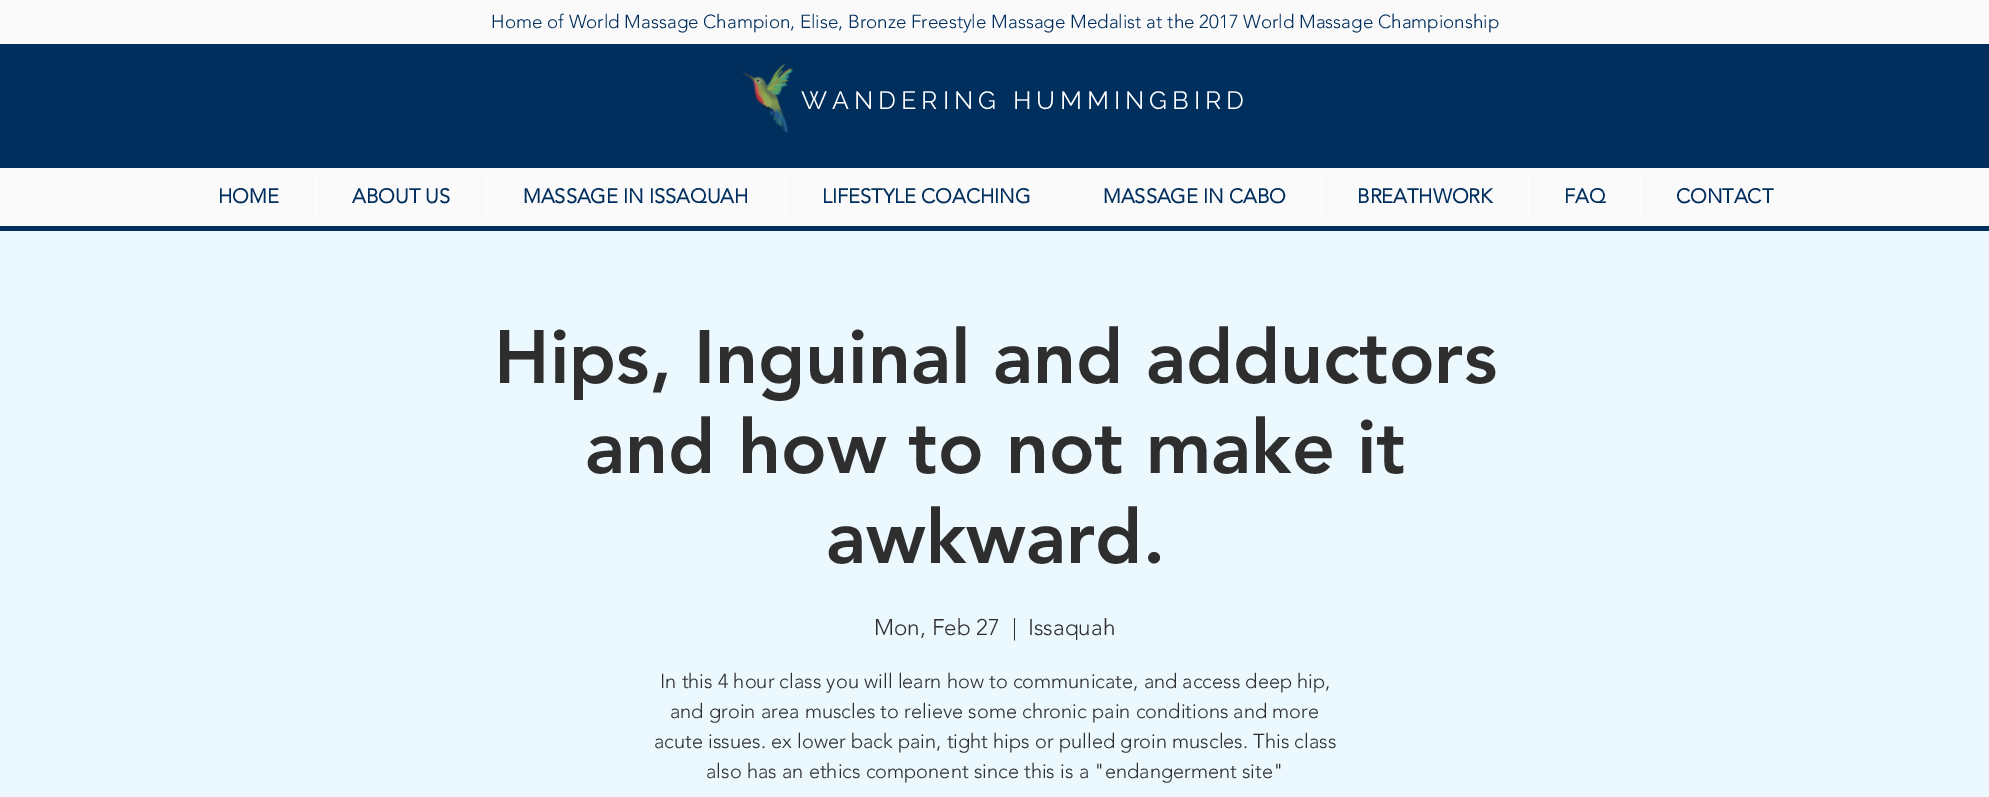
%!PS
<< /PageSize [1989 797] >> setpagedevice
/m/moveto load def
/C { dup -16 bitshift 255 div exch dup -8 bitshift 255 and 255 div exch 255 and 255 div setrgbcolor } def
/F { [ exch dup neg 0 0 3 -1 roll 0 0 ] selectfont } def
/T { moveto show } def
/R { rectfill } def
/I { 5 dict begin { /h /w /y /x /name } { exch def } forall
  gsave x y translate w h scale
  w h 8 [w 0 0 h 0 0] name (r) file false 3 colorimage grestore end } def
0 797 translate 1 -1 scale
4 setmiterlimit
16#EBF9FF C
0 0 1989 797 R
16#FAFAFA C
0 0 1989 44 R
/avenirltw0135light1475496-Light 18.75 F
16#002E5D C
(Home of World Massage Champion, Elise, Bronze Freestyle Massage Medalist at the 2017 World Massage Championship) 491 28 T
0 44 1989 187 R
(1.rgb) 742 63 51 70 I
/Raleway-Regular 25 F
16#FFFFFF C
801 109 m 5 0 (WANDERING HUMMINGBIRD) ashow
16#FAFAFA C
0 168 1989 58 R
/avenirltw0135light1475496-Bold 20 F
16#002E5D C
(HOME) 218 203 T
16#FFFFFF C
315 175 1 43 R
16#002E5D C
(ABOUT US) 352 203 T
16#FFFFFF C
486 175 1 43 R
16#002E5D C
(MASSAGE IN ISSAQUAH) 523 203 T
16#FFFFFF C
785 175 1 43 R
16#002E5D C
(LIFESTYLE COACHING) 822 203 T
16#FFFFFF C
1066 175 1 43 R
16#002E5D C
(MASSAGE IN CABO) 1103 203 T
16#FFFFFF C
1321 175 1 43 R
16#002E5D C
(BREATHWORK) 1357 203 T
16#FFFFFF C
1528 175 1 43 R
16#002E5D C
(FAQ) 1564 203 T
16#FFFFFF C
1640 175 1 43 R
16#002E5D C
(CONTACT) 1676 203 T
/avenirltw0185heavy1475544-Black 75 F
16#2F2E2E C
(Hips, Inguinal and adductors) 494 383 T
(and how to not make it) 585 473 T
(awkward.) 826 563 T
/avenirltw0135light1475496-Light 22.5 F
(Mon, Feb 27) 874 635 T
(|) 1012 635 T
(Issaquah) 1028 635 T
/avenirltw0135light1475496-Light 20 F
(In this 4 hour class you will learn how to communicate, and access deep hip,) 660 688 T
(and groin area muscles to relieve some chronic pain conditions and more) 670 718 T
(acute issues. ex lower back pain, tight hips or pulled groin muscles. This class) 654 748 T
(also has an ethics component since this is a "endangerment site") 706 778 T
showpage
